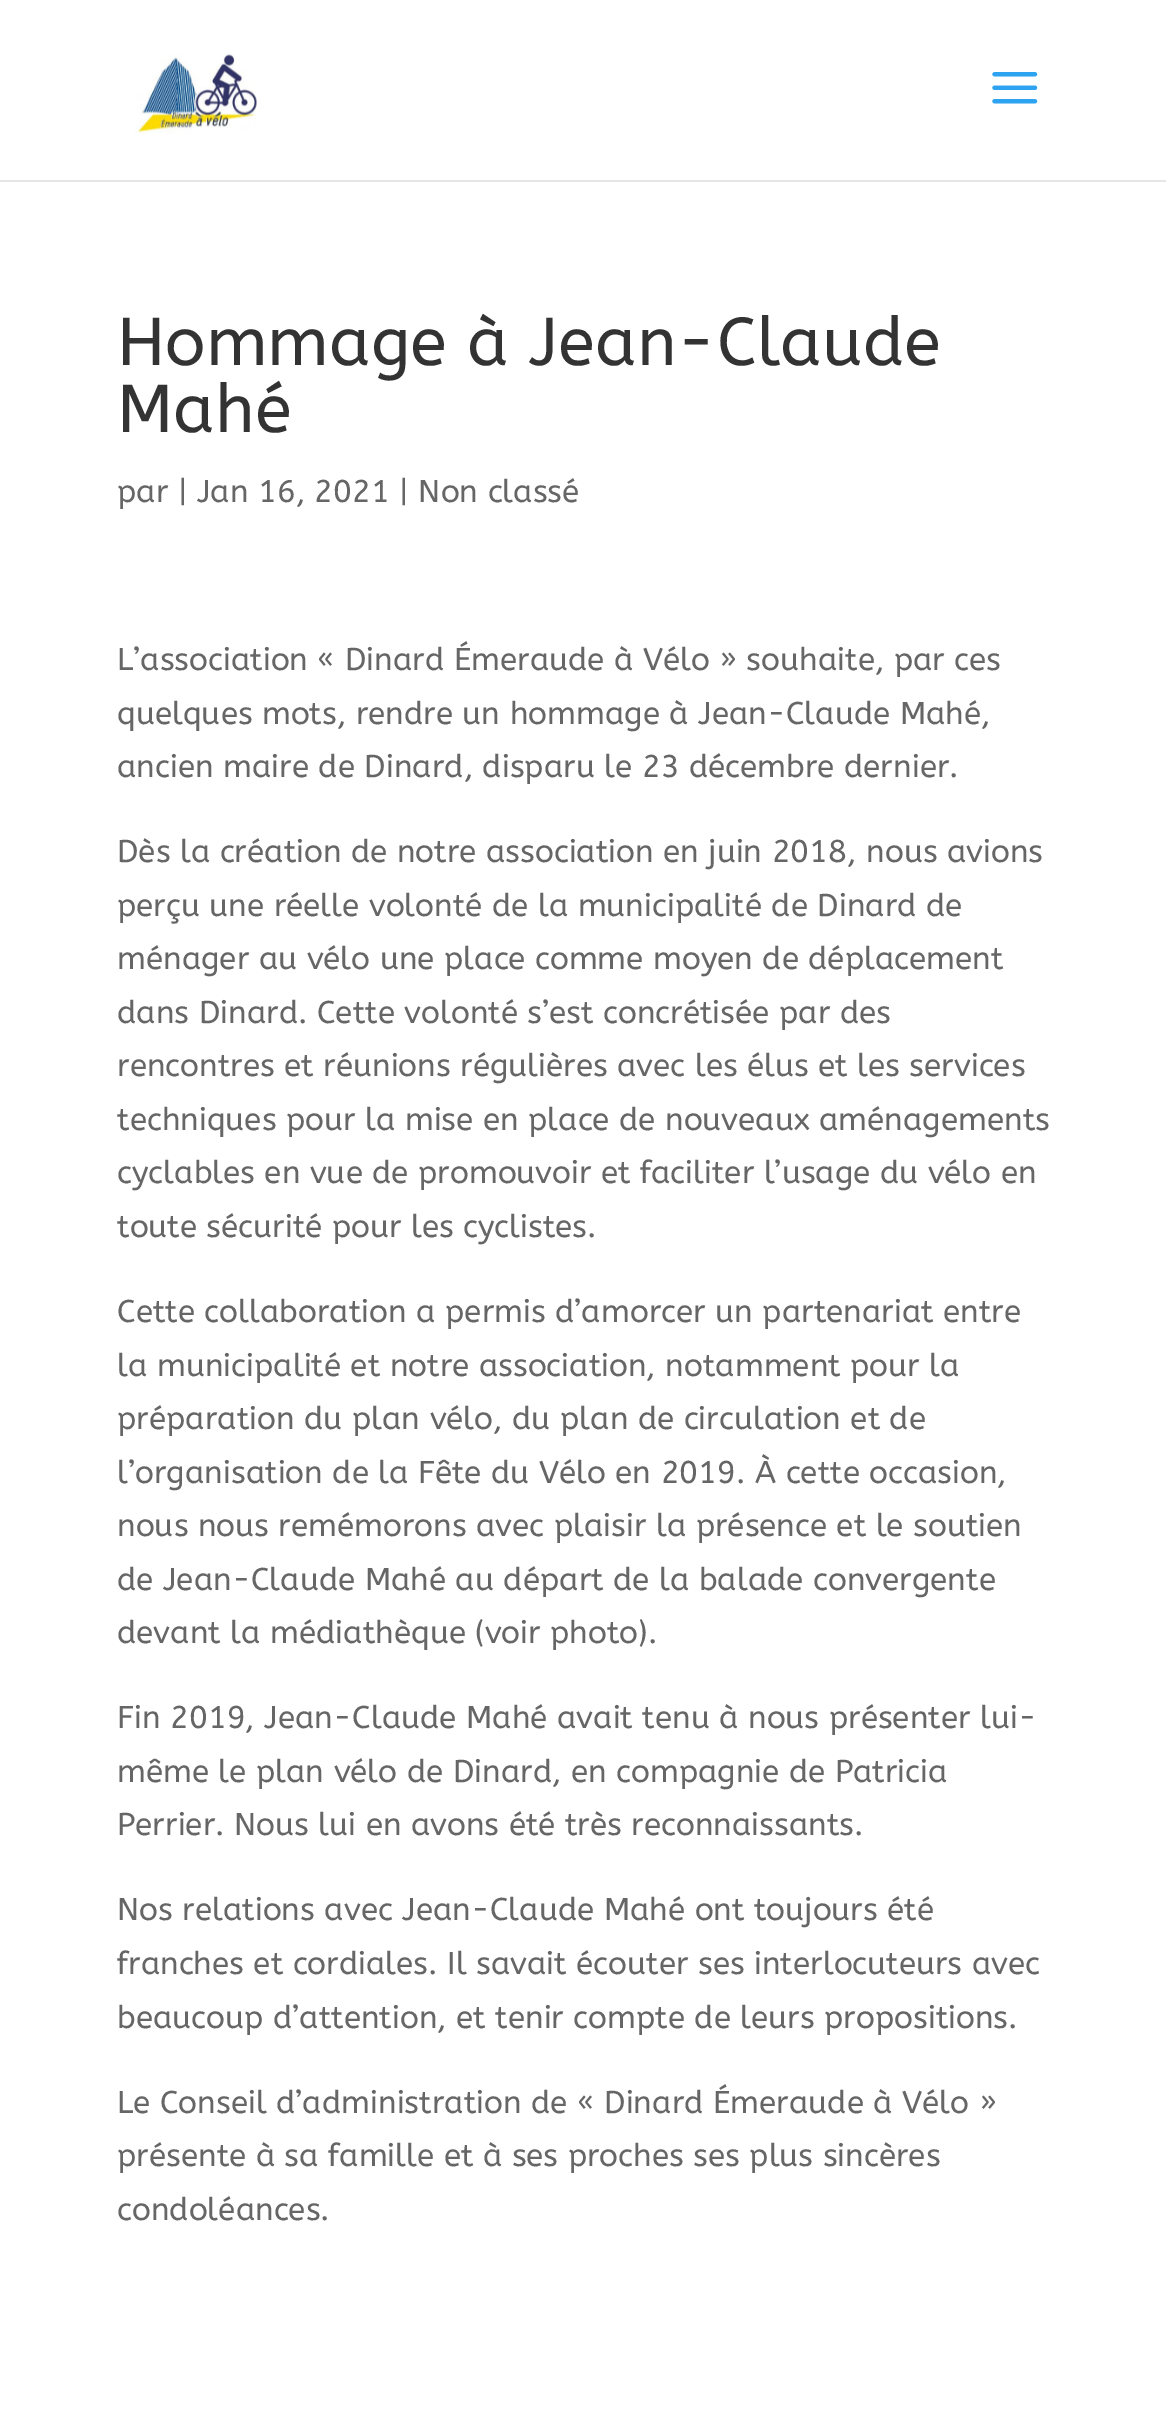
%!PS
<< /PageSize [1166 2420] >> setpagedevice
/m/moveto load def
/l/rlineto load def
/z/closepath load def
/f/fill load def
/C { dup -16 bitshift 255 div exch dup -8 bitshift 255 and 255 div exch 255 and 255 div setrgbcolor } def
/F { [ exch dup neg 0 0 3 -1 roll 0 0 ] selectfont } def
/T { moveto show } def
/R { rectfill } def
/I { 5 dict begin { /h /w /y /x /name } { exch def } forall
  gsave x y translate w h scale
  w h 8 [w 0 0 h 0 0] name (r) file false 3 colorimage grestore end } def
0 2420 translate 1 -1 scale
4 setmiterlimit
16#FFFFFF C
0 0 1166 2420 R
16#E6E6E6 C
0 180 m 0 2 l 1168 0 l 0 -180 l 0 178 l z f
(1.rgb) 134 54 123 80 I
(2.rgb) 992 72 46 32 I
/ABeeZee-Regular 67.5 F
16#333333 C
(Hommage à Jean-Claude) 117 365 T
(Mahé) 117 432 T
/ABeeZee-Regular 31.5 F
16#666666 C
(par | Jan 16, 2021 | Non classé) 117 502 T
(L’association « Dinard Émeraude à Vélo » souhaite, par ces) 117 670 T
(quelques mots, rendre un hommage à Jean-Claude Mahé,) 117 724 T
(ancien maire de Dinard, disparu le 23 décembre dernier.) 117 777 T
(Dès la création de notre association en juin 2018, nous avions) 117 862 T
(perçu une réelle volonté de la municipalité de Dinard de) 117 916 T
(ménager au vélo une place comme moyen de déplacement) 117 969 T
(dans Dinard. Cette volonté s’est concrétisée par des) 117 1023 T
(rencontres et réunions régulières avec les élus et les services) 117 1076 T
(techniques pour la mise en place de nouveaux aménagements) 117 1130 T
(cyclables en vue de promouvoir et faciliter l’usage du vélo en) 117 1183 T
(toute sécurité pour les cyclistes.) 117 1237 T
(Cette collaboration a permis d’amorcer un partenariat entre) 117 1322 T
(la municipalité et notre association, notamment pour la) 117 1376 T
(préparation du plan vélo, du plan de circulation et de) 117 1429 T
(l’organisation de la Fête du Vélo en 2019. À cette occasion,) 117 1483 T
(nous nous remémorons avec plaisir la présence et le soutien) 117 1536 T
(de Jean-Claude Mahé au départ de la balade convergente) 117 1590 T
(devant la médiathèque \(voir photo\).) 117 1643 T
(Fin 2019, Jean-Claude Mahé avait tenu à nous présenter lui-) 117 1728 T
(même le plan vélo de Dinard, en compagnie de Patricia) 117 1782 T
(Perrier. Nous lui en avons été très reconnaissants.) 117 1835 T
(Nos relations avec Jean-Claude Mahé ont toujours été) 117 1920 T
(franches et cordiales. Il savait écouter ses interlocuteurs avec) 117 1974 T
(beaucoup d’attention, et tenir compte de leurs propositions.) 117 2028 T
(Le Conseil d’administration de « Dinard Émeraude à Vélo ») 117 2113 T
(présente à sa famille et à ses proches ses plus sincères) 117 2166 T
(condoléances.) 117 2220 T
showpage
